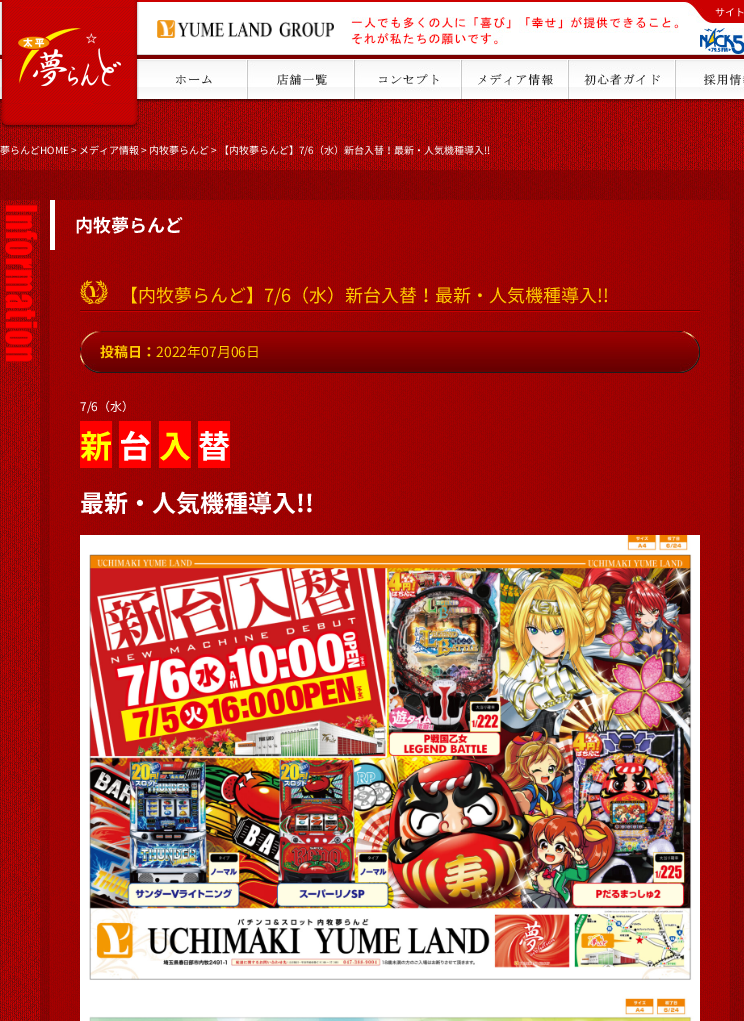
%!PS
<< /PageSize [744 1021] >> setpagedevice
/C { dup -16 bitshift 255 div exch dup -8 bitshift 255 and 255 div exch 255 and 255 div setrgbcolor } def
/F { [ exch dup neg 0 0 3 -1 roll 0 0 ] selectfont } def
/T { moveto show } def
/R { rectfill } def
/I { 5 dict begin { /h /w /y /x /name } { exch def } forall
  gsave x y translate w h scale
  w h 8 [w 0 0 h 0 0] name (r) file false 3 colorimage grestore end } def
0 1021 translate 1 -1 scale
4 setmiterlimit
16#FFFFFF C
0 0 744 1021 R
(1.rgb) 0 170 744 851 I
(2.rgb) 0 99 744 71 I
(3.rgb) 0 0 744 102 I
(16.rgb) 0 99 372 3 I
(4.rgb) 0 2 744 100 I
(5.rgb) 0 0 139 129 I
(6.rgb) 680 0 64 23 I
/NotoSansJP-Regular 10 F
(サイト) 715 16 T
(7.rgb) 700 28 44 26 I
(8.rgb) 157 20 177 18 I
(9.rgb) 351 17 328 28 I
(10.rgb) 140 59 107 40 I
(11.rgb) 247 59 107 40 I
(12.rgb) 354 59 107 40 I
(13.rgb) 461 59 107 40 I
(14.rgb) 568 59 107 40 I
(15.rgb) 675 59 69 40 I
(夢らんどHOME > メディア情報 > 内牧夢らんど > 【内牧夢らんど】7/6（水）新台入替！最新・人気機種導入!!) 0 154 T
(17.rgb) 0 200 730 821 I
(18.rgb) 5 204 33 158 I
50 200 5 50 R
/NotoSansJP-Bold 18 F
(内牧夢らんど) 75 232 T
16#CC0000 C
80 311 620 1 R
(19.rgb) 80 280 28 24 I
16#660000 C
80 310 620 1 R
/NotoSansJP-Regular 18 F
16#FFCC00 C
(【内牧夢らんど】7/6（水）新台入替！最新・人気機種導入!!) 120 302 T
(20.rgb) 80 331 620 42 I
/NotoSansJP-Bold 14 F
(投稿日：) 100 357 T
/NotoSansJP-Regular 14 F
(2022年07月06日) 156 357 T
/NotoSansJP-Regular 12 F
16#FFFFFF C
(7/6（水）) 80 411 T
16#FF0000 C
80 421 32 47 R
/NotoSansJP-Bold 32 F
16#FFFF00 C
(新) 80 458 T
16#FF0000 C
119 421 32 47 R
16#FFFFFF C
(台) 119 458 T
16#FF0000 C
159 421 32 47 R
16#FFFF00 C
(入) 159 458 T
16#FF0000 C
198 421 32 47 R
16#FFFFFF C
(替) 198 458 T
/NotoSansJP-Bold 24 F
(最新・人気機種導入!!) 80 512 T
(21.rgb) 80 535 620 455 I
(22.rgb) 80 990 620 31 I
showpage
